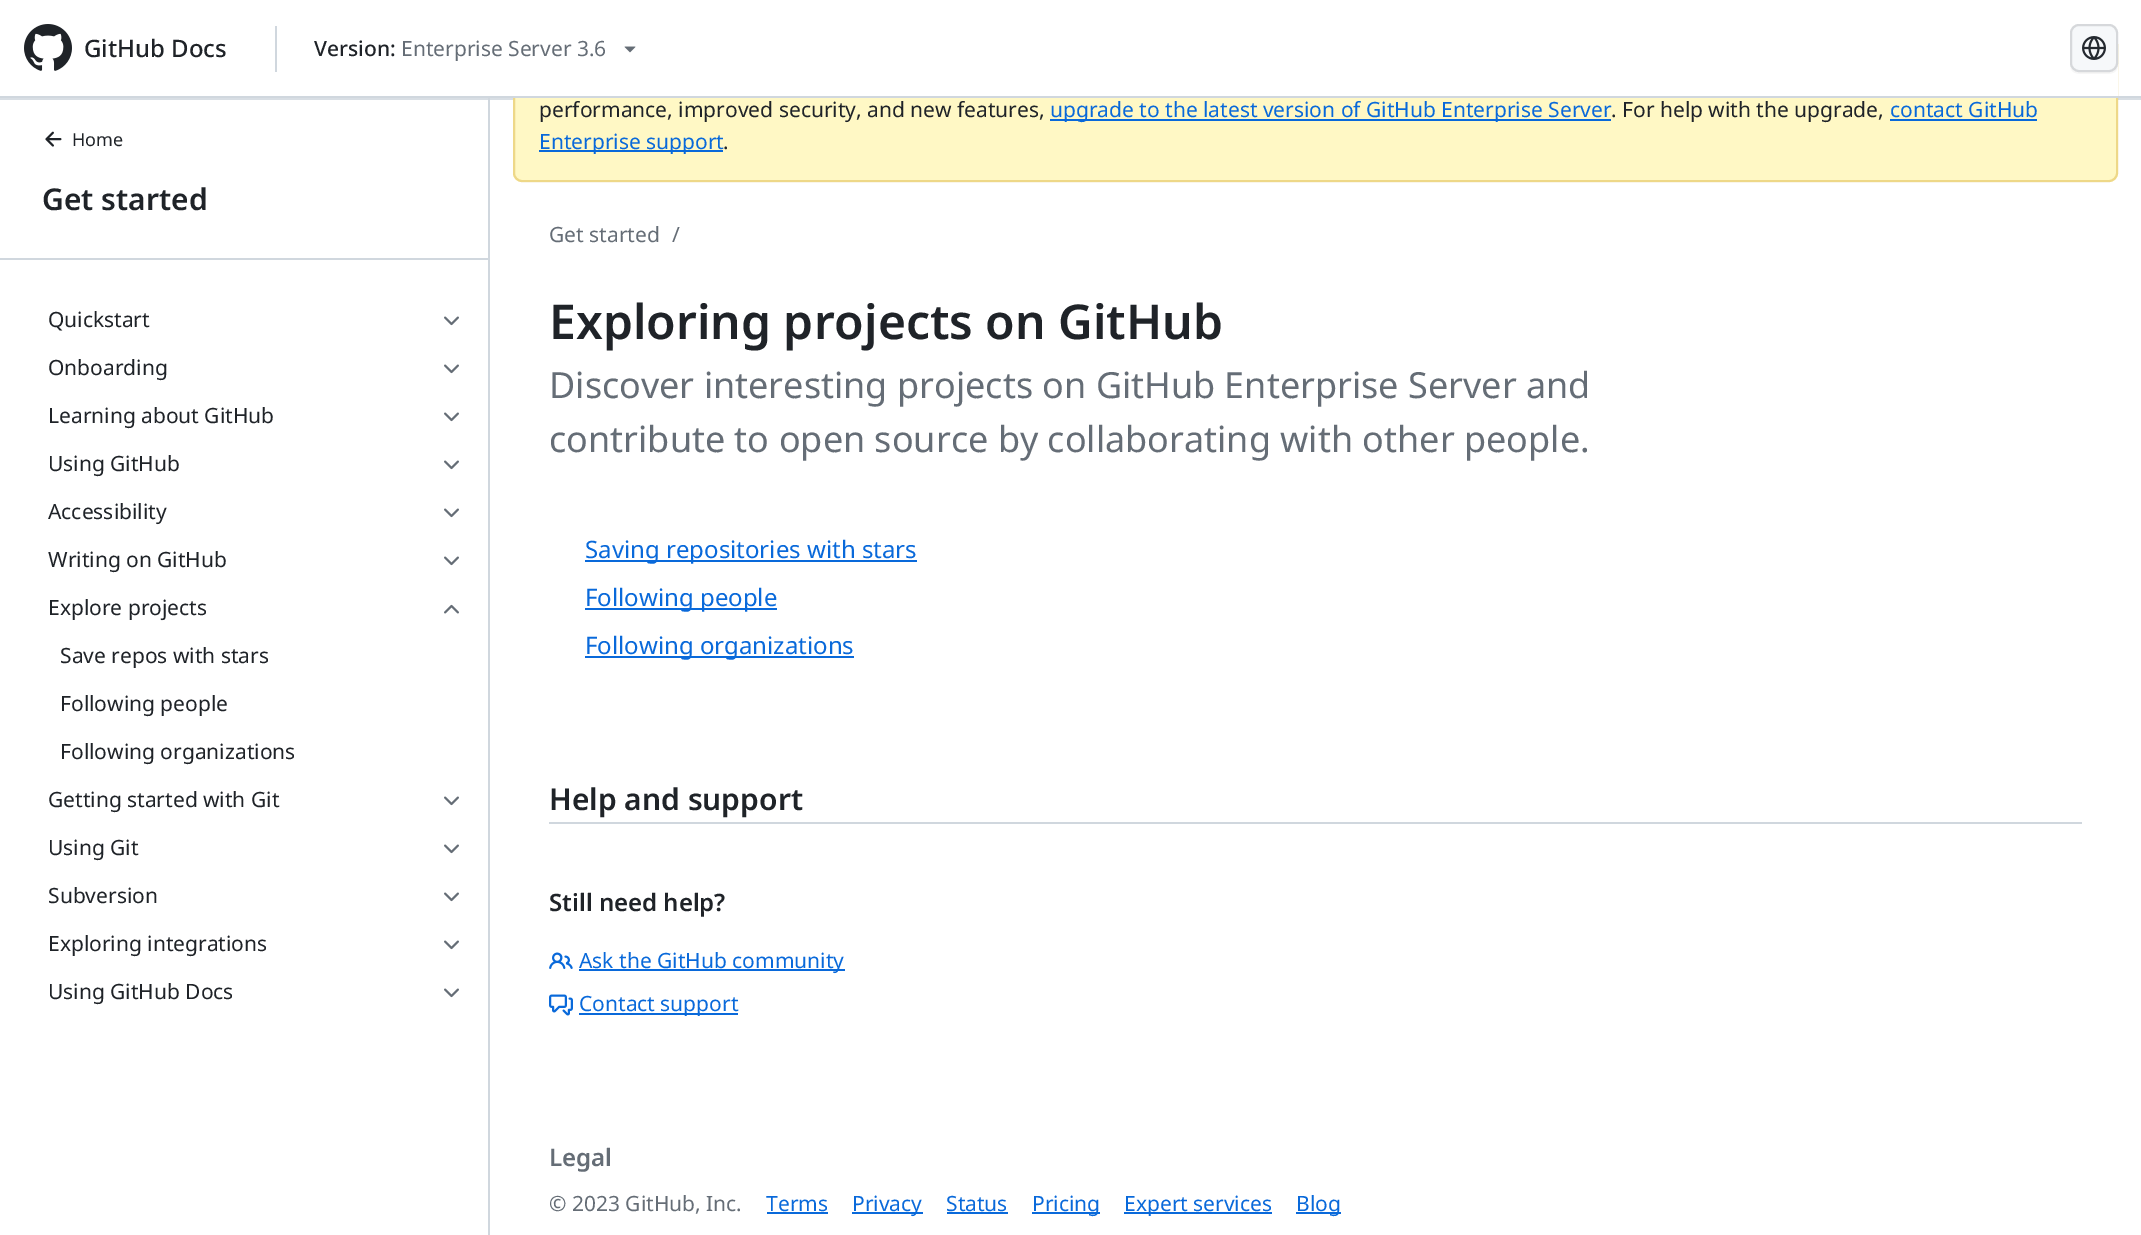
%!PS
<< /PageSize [2141 1235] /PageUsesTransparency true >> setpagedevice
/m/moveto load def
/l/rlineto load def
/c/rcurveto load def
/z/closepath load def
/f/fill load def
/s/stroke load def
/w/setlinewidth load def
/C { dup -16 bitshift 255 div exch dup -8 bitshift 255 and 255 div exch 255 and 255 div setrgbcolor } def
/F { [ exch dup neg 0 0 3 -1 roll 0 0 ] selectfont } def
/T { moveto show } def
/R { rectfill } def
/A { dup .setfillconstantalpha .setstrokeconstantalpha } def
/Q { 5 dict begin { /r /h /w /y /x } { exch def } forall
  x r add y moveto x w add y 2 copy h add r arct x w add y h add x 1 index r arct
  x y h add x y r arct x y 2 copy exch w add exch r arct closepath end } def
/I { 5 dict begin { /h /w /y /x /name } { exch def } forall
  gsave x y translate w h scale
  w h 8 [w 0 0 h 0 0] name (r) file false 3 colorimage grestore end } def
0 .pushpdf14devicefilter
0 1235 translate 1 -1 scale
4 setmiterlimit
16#FFFFFF C
0 0 2141 1235 R
16#D8DEE4 C
0 98 2141 2 R
16#FFF8C5 C
513 36 1605 146 9 Q f
0.4 A
16#D4A72C C
2 w
514 37 1603 144 8 Q s
1 A
16#FFFFFF C
513 36 1605 60 R
16#D0D7DE C
0 96 2141 2 R
(1.rgb) 24 24 48 47 I
/NotoSans-Medium 24 F
16#1F2328 C
(GitHub Docs) 84 57 T
16#D0D7DE C
275 26 2 46 R
/NotoSans-Medium 21 F
16#1F2328 C
(Version:) 314 56 T
/NotoSans-Regular 21 F
16#656D76 C
(Enterprise Server 3.6) 401 56 T
(2.rgb) 624 46 12 7 I
16#F6F6F6 C
2070 63 m 0 10 5 11 14 11 c 20 0 l 9 0 14 -1 14 -11 c 0 5 -4 9 -9 9 c -30 0 l -5 0 -9 -4 -9 -9 c z f
16#F6F8FA C
2070 24 48 48 9 Q f
0.15 A
16#1F2328 C
2071 25 46 46 8 Q s
1 A
(3.rgb) 2082 36 24 24 I
16#D0D7DE C
488 98 2 1137 R
0 258 488 2 R
(4.rgb) 45 131 17 16 I
/NotoSans-Regular 18 F
16#1F2328 C
(Home) 72 146 T
/NotoSans-SemiBold 30 F
(Get started) 42 210 T
/NotoSans-Regular 21 F
(Quickstart) 48 327 T
(5.rgb) 444 316 15 10 I
(Onboarding) 48 375 T
(5.rgb) 444 364 15 10 I
(Learning about GitHub) 48 423 T
(5.rgb) 444 412 15 10 I
(Using GitHub) 48 471 T
(5.rgb) 444 460 15 10 I
(Accessibility) 48 519 T
(5.rgb) 444 508 15 10 I
(Writing on GitHub) 48 567 T
(5.rgb) 444 556 15 10 I
(Explore projects) 48 615 T
(6.rgb) 444 604 15 10 I
(Save repos with stars) 60 663 T
(Following people) 60 711 T
(Following organizations) 60 759 T
(Getting started with Git) 48 807 T
(5.rgb) 444 796 15 10 I
(Using Git) 48 855 T
(5.rgb) 444 844 15 10 I
(Subversion) 48 903 T
(5.rgb) 444 892 15 10 I
(Exploring integrations) 48 951 T
(5.rgb) 444 940 15 10 I
(Using GitHub Docs) 48 999 T
(5.rgb) 444 988 15 10 I
(performance, improved security, and new features,) 539 117 T
16#0969DA C
1050 119 561 2 R
(upgrade to the latest version of GitHub Enterprise Server) 1050 117 T
16#1F2328 C
(. For help with the upgrade,) 1611 117 T
16#0969DA C
(contact GitHub) 1890 117 T
1890 119 147 2 R
539 150 184 2 R
(Enterprise support) 539 149 T
16#1F2328 C
(.) 723 149 T
16#656D76 C
(Get started) 549 242 T
(/) 672 242 T
/NotoSans-SemiBold 48 F
16#1F2328 C
(Exploring projects on GitHub) 549 339 T
/NotoSans-Regular 36 F
16#656D76 C
(Discover interesting projects on GitHub Enterprise Server and) 549 398 T
(contribute to open source by collaborating with other people.) 549 452 T
16#0969DA C
585 560 332 2 R
/NotoSans-Regular 24 F
(Saving repositories with stars) 585 558 T
585 608 192 2 R
(Following people) 585 606 T
585 656 269 2 R
(Following organizations) 585 654 T
/NotoSans-SemiBold 30 F
16#1F2328 C
(Help and support) 549 810 T
16#D0D7DE C
549 822 1533 2 R
/NotoSans-SemiBold 24 F
16#1F2328 C
(Still need help?) 549 911 T
(7.rgb) 549 952 24 17 I
16#0969DA C
579 969 266 2 R
/NotoSans-Regular 21 F
(Ask the GitHub community) 579 968 T
(8.rgb) 549 994 24 22 I
579 1013 159 2 R
(Contact support) 579 1011 T
/NotoSans-SemiBold 24 F
16#656D76 C
(Legal) 549 1166 T
/NotoSans-Regular 21 F
(© 2023 GitHub, Inc.) 549 1211 T
16#0969DA C
(Terms) 766 1211 T
767 1212 61 2 R
852 1212 71 2 R
(Privacy) 852 1211 T
(Status) 946 1211 T
947 1212 61 2 R
1032 1212 68 2 R
(Pricing) 1032 1211 T
1124 1212 148 2 R
(Expert services) 1124 1211 T
1296 1212 45 2 R
(Blog) 1296 1211 T
.poppdf14devicefilter showpage
